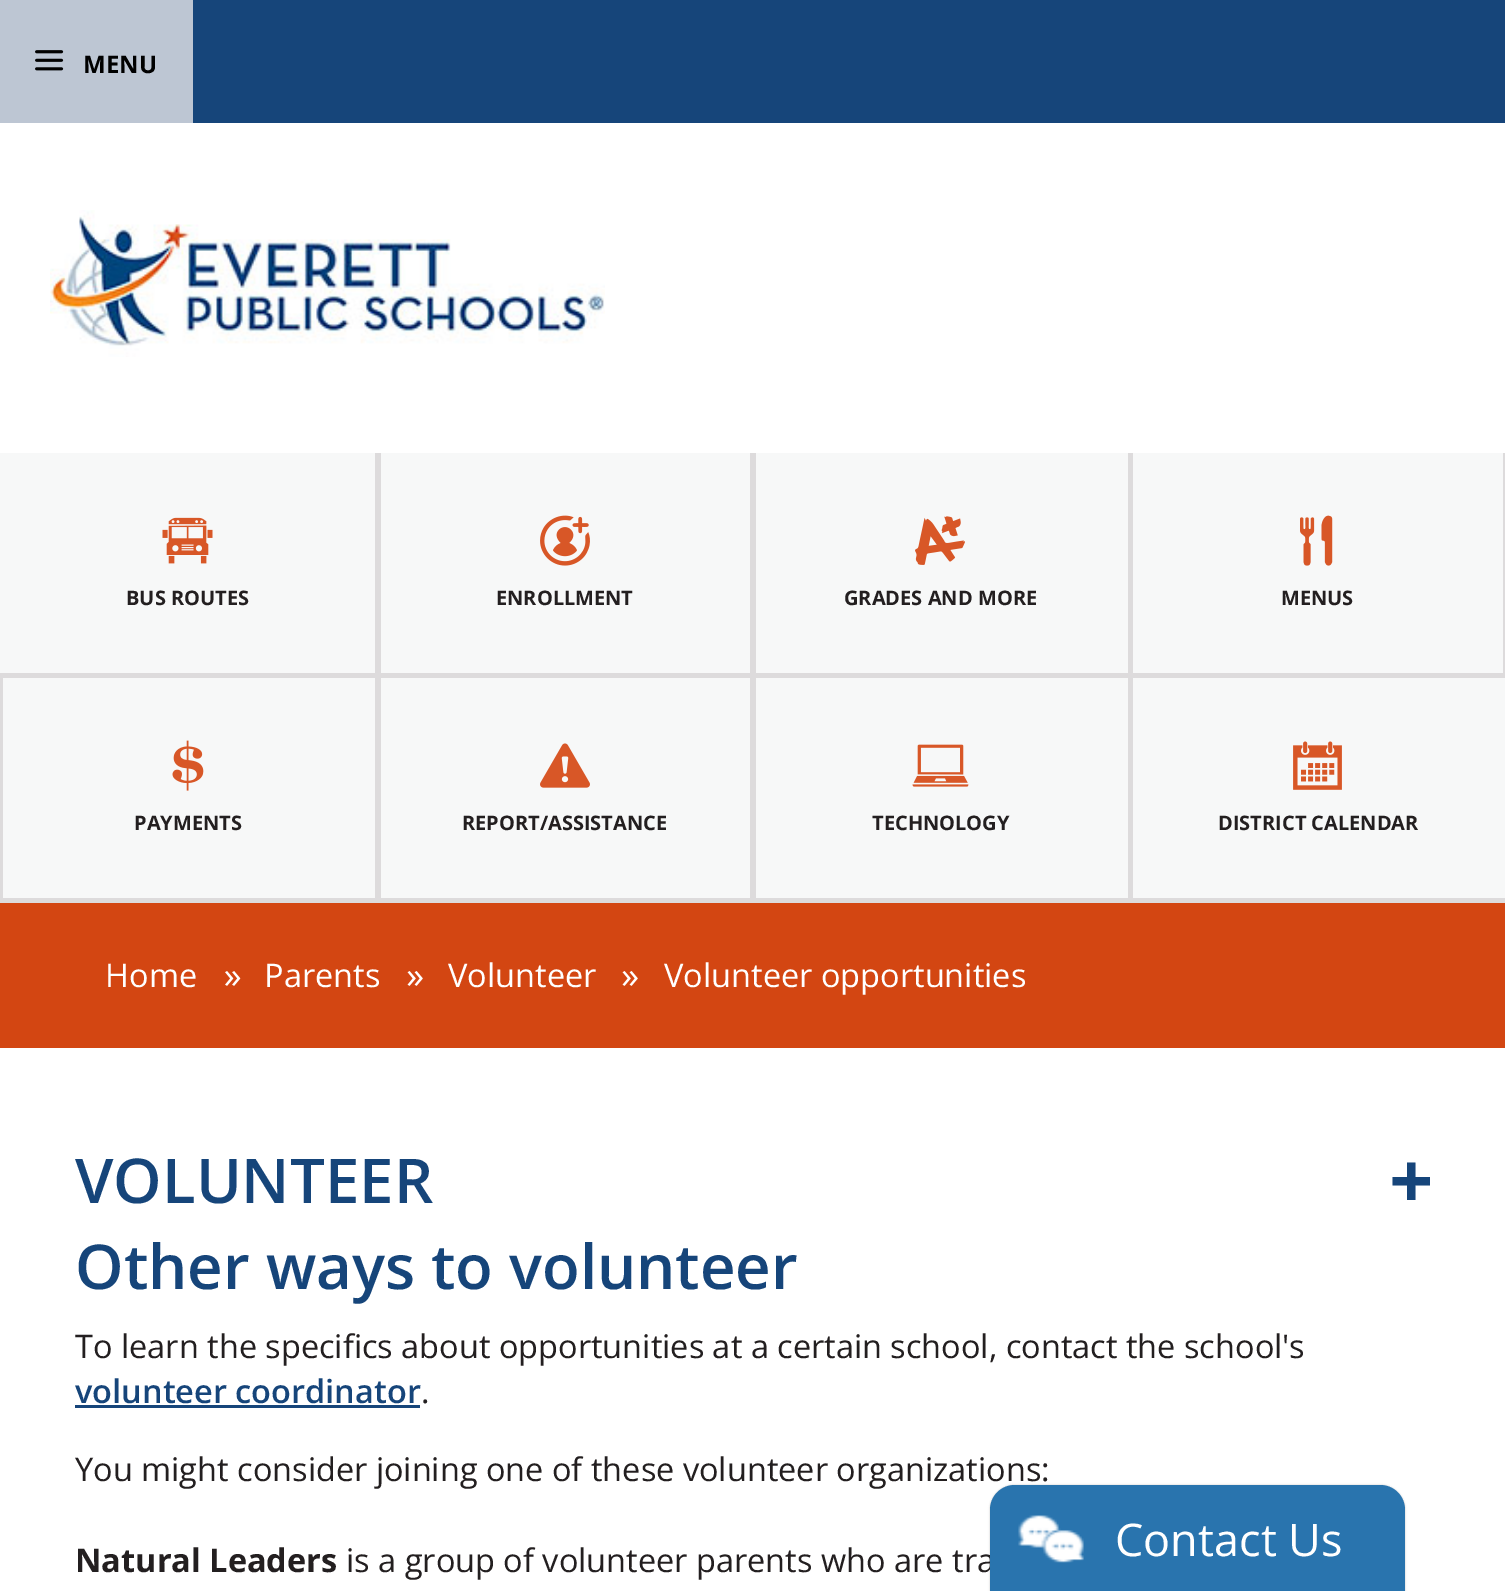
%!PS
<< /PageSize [1505 1591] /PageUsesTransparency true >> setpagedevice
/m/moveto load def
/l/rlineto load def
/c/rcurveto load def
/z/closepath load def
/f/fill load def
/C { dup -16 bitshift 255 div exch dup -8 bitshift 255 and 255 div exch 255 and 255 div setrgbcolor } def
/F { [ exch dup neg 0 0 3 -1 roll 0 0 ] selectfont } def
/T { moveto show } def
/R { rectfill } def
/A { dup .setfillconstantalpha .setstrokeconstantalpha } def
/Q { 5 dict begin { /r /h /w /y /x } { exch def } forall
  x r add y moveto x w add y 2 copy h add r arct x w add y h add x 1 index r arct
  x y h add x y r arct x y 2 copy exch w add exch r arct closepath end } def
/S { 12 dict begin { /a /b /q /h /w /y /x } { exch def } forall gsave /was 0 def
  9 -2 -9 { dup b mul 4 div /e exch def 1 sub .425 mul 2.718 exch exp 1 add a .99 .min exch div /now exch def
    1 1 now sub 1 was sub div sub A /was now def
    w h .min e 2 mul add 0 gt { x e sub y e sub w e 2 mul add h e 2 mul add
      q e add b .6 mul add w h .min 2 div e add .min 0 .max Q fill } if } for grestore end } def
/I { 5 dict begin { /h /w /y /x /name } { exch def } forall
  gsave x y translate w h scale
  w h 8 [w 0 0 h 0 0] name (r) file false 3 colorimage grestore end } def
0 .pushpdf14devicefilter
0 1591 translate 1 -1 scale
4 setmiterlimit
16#FFFFFF C
0 0 1505 1591 R
16#16457A C
193 0 1312 123 R
16#BDC6D3 C
0 0 193 123 R
(1.rgb) 35 50 29 21 I
/OpenSans-Bold 24 F
16#000000 C
(MENU) 83 73 T
(2.rgb) 50 210 555 147 I
16#F7F8F8 C
0 453 1505 445 R
16#DDDBDC C
375 453 6 225 R
0 673 375 5 R
(3.rgb) 162 517 51 47 I
/OpenSans-Bold 20 F
16#231F20 C
(BUS ROUTES) 126 605 T
16#DDDBDC C
750 453 6 225 R
380 673 370 5 R
(4.rgb) 540 515 50 51 I
16#231F20 C
(ENROLLMENT) 496 605 T
16#DDDBDC C
1128 453 5 225 R
755 673 373 5 R
(5.rgb) 915 516 50 49 I
16#231F20 C
(GRADES AND MORE) 844 605 T
16#DDDBDC C
1503 453 2 225 R
1133 673 370 5 R
(6.rgb) 1300 515 33 51 I
16#231F20 C
(MENUS) 1281 605 T
16#DDDBDC C
375 678 6 225 R
0 678 3 225 R
3 898 372 5 R
(7.rgb) 172 740 32 51 I
16#231F20 C
(PAYMENTS) 134 830 T
16#DDDBDC C
750 678 6 225 R
380 898 370 5 R
(8.rgb) 540 743 50 45 I
16#231F20 C
(REPORT/ASSISTANCE) 462 830 T
16#DDDBDC C
1128 678 5 225 R
755 898 373 5 R
(9.rgb) 912 744 57 43 I
16#231F20 C
(TECHNOLOGY) 872 830 T
16#DDDBDC C
1133 898 372 5 R
(10.rgb) 1293 741 49 49 I
16#231F20 C
(DISTRICT CALENDAR) 1218 830 T
16#D34612 C
0 903 1505 145 R
/OpenSans-Regular 32.5 F
16#FFFFFF C
(Home) 105 987 T
(11.rgb) 225 971 16 15 I
(Parents) 264 987 T
(12.rgb) 407 971 16 15 I
(Volunteer) 448 987 T
(12.rgb) 622 971 16 15 I
(Volunteer opportunities) 664 987 T
/OpenSans-SemiBold 61.75 F
16#16457A C
(VOLUNTEER) 75 1203 T
1407 1185.5 m -14.5 0 l 0 -8.5 l 14.5 0 l 0 -14.5 l 8.5 0 l 0 14.5 l 14.5 0 l 0 8.5 l -14.5 0 l 0 14.5 l -8.5 0 l z f
(Other ways to volunteer) 75 1289 T
/OpenSans-Regular 32.5 F
16#231F20 C
(To learn the specifics about opportunities at a certain school, contact the school's) 75 1358 T
/OpenSans-SemiBold 32.5 F
16#16457A C
(volunteer coordinator) 75 1403 T
75 1405 345 3 R
/OpenSans-Regular 32.5 F
16#231F20 C
(.) 421 1403 T
(You might consider joining one of these volunteer organizations:) 75 1481 T
/OpenSans-Bold 32.5 F
(Natural Leaders) 75 1572 T
/OpenSans-Regular 32.5 F
(is a group of volunteer parents who are tra) 346 1572 T
16#000000 C
990 1485 415 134 25 1 .22 S
16#2974AE C
1015 1485 m 365 0 l 14 0 25 11 25 25 c 0 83 l -415 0 l 0 -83 l 0 -14 11 -25 25 -25 c z f
(13.rgb) 1018 1515 66 48 I
/OpenSans-Regular 45 F
16#FFFFFF C
(Contact Us) 1115 1556 T
.poppdf14devicefilter showpage
